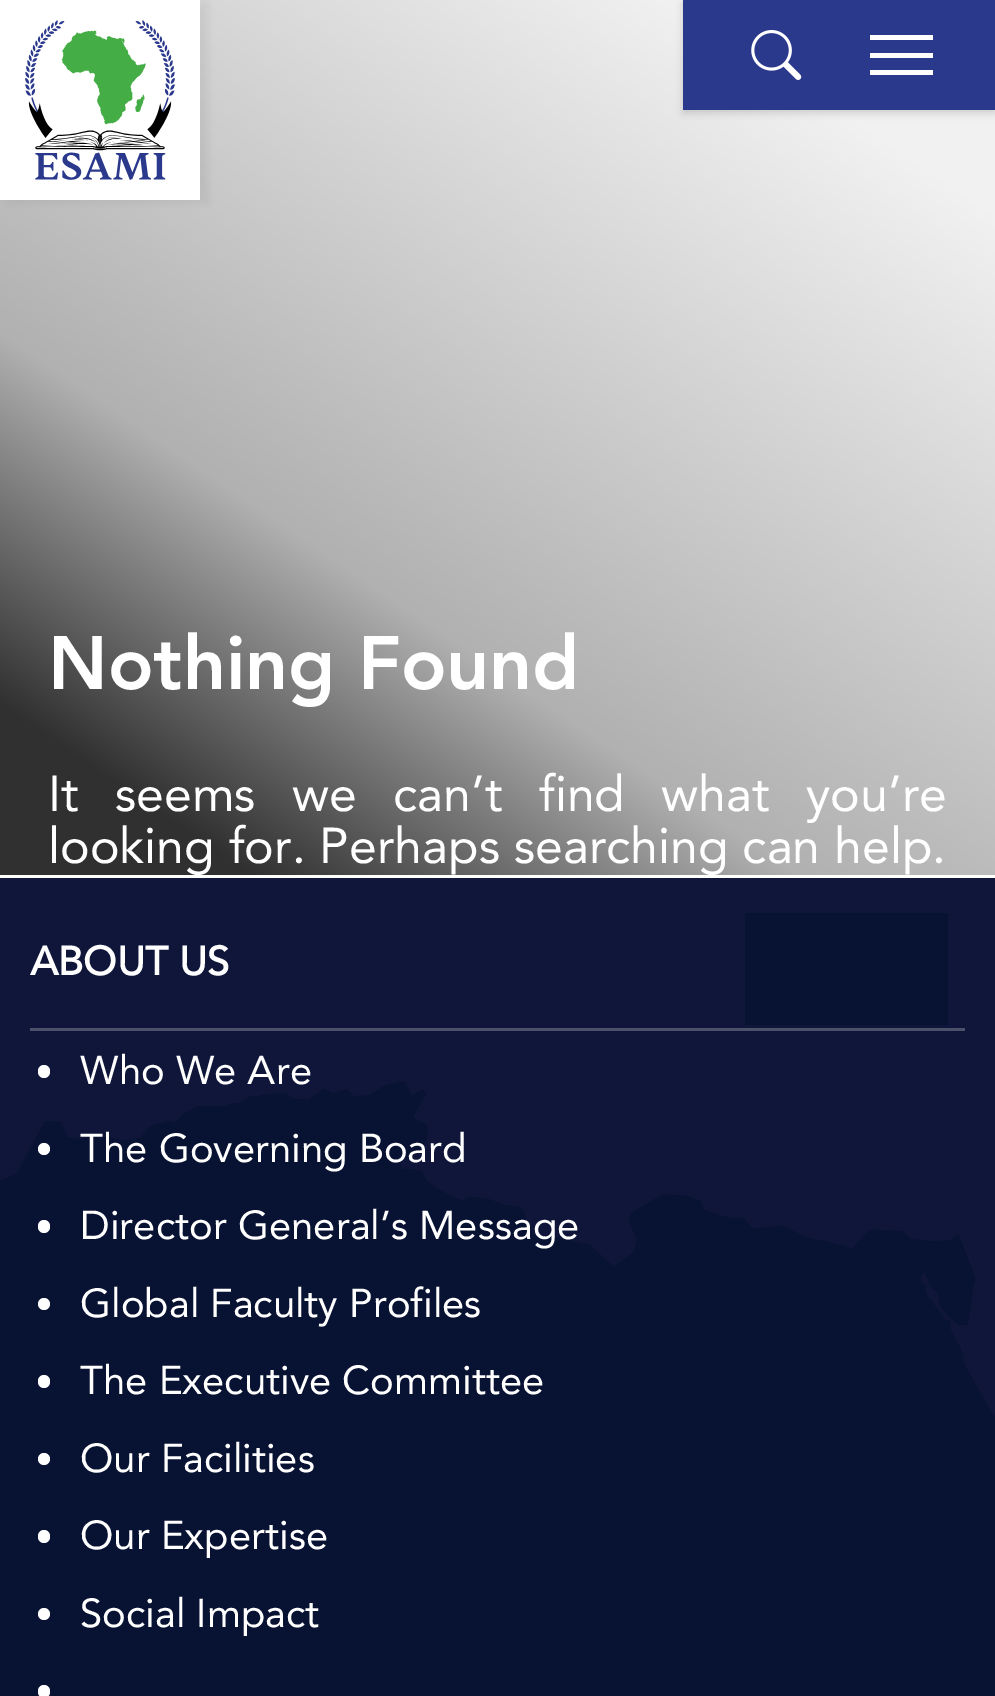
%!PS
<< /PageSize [995 1696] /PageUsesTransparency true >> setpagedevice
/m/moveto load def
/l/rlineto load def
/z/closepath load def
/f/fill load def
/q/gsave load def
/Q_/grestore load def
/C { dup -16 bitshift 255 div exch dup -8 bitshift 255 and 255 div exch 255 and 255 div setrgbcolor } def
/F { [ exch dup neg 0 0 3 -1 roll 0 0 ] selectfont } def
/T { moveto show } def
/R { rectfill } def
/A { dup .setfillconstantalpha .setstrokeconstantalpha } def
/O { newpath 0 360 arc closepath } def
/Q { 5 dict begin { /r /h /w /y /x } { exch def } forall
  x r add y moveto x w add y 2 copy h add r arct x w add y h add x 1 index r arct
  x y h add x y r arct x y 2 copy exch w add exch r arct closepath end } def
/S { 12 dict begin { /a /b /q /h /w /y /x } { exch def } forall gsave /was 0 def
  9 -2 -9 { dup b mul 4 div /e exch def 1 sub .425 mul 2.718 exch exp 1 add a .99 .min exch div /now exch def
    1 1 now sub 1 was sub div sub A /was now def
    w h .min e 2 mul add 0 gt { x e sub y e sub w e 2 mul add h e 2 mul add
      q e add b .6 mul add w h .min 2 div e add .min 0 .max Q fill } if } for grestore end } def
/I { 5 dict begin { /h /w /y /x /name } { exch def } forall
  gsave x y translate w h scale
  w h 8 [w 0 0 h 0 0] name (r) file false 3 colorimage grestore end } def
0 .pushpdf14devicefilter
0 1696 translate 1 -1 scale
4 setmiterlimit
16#FFFFFF C
0 0 995 1696 R
16#0F1639 C
0 878 995 538 R
q 0 0 m 995 0 l 0 875 l -995 0 l z clip newpath
<< /ShadingType 2 /ColorSpace /DeviceRGB /Coords [858 -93 137 968] /Extend [true true] /Function << /FunctionType 3 /Domain [0 1] /Functions [<< /FunctionType 2 /Domain [0 1] /C0 [.945 .945 .945] /C1 [.945 .945 .945] /N 1 >> << /FunctionType 2 /Domain [0 1] /C0 [.945 .945 .945] /C1 [.694 .694 .694] /N 1 >> << /FunctionType 2 /Domain [0 1] /C0 [.694 .694 .694] /C1 [.188 .188 .188] /N 1 >> << /FunctionType 2 /Domain [0 1] /C0 [.188 .188 .188] /C1 [.188 .188 .188] /N 1 >>] /Bounds [.14 .65 .89] /Encode [0 1 0 1 0 1 0 1] >> >> shfill Q_
16#000000 C
8 3 200 200 0 4 .05 S
16#FFFFFF C
0 0 200 200 R
(1.rgb) 25 20 150 160 I
16#000000 C
683 3 312 110 0 4 .15 S
16#2B398C C
683 0 312 110 R
(2.rgb) 751 30 51 50 I
16#FFFFFF C
870 53 63 5 R
870 35 63 5 R
870 70 63 5 R
/Avenir-Black 75 F
(Nothing Found) 48 689 T
/Avenir-Regular 50 F
48 811 m 22.5 0 32 (It seems we can’t find what you’re) widthshow
(looking for. Perhaps searching can help.) 48 863 T
16#081232 C
745 913 203 112 R
16#4B506B C
30 1028 935 3 R
/Avenir-Bold 40 F
16#FFFFFF C
(ABOUT US) 30 975 T
38 1065 12 13 6 Q f
(3.rgb) 0 1081 995 615 I
/Avenir-Regular 40 F
(Who We Are) 80 1084 T
44 1149 6 O f
(The Governing Board) 80 1162 T
38 1220 12 13 6 Q f
(Director General’s Message) 80 1239 T
44 1304 6 O f
(Global Faculty Profiles) 80 1317 T
38 1375 12 13 6 Q f
(The Executive Committee) 80 1394 T
44 1459 6 O f
(Our Facilities) 80 1472 T
38 1530 12 13 6 Q f
(Our Expertise) 80 1549 T
44 1614 6 O f
(Social Impact) 80 1627 T
38 1685 12 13 6 Q f
.poppdf14devicefilter showpage
